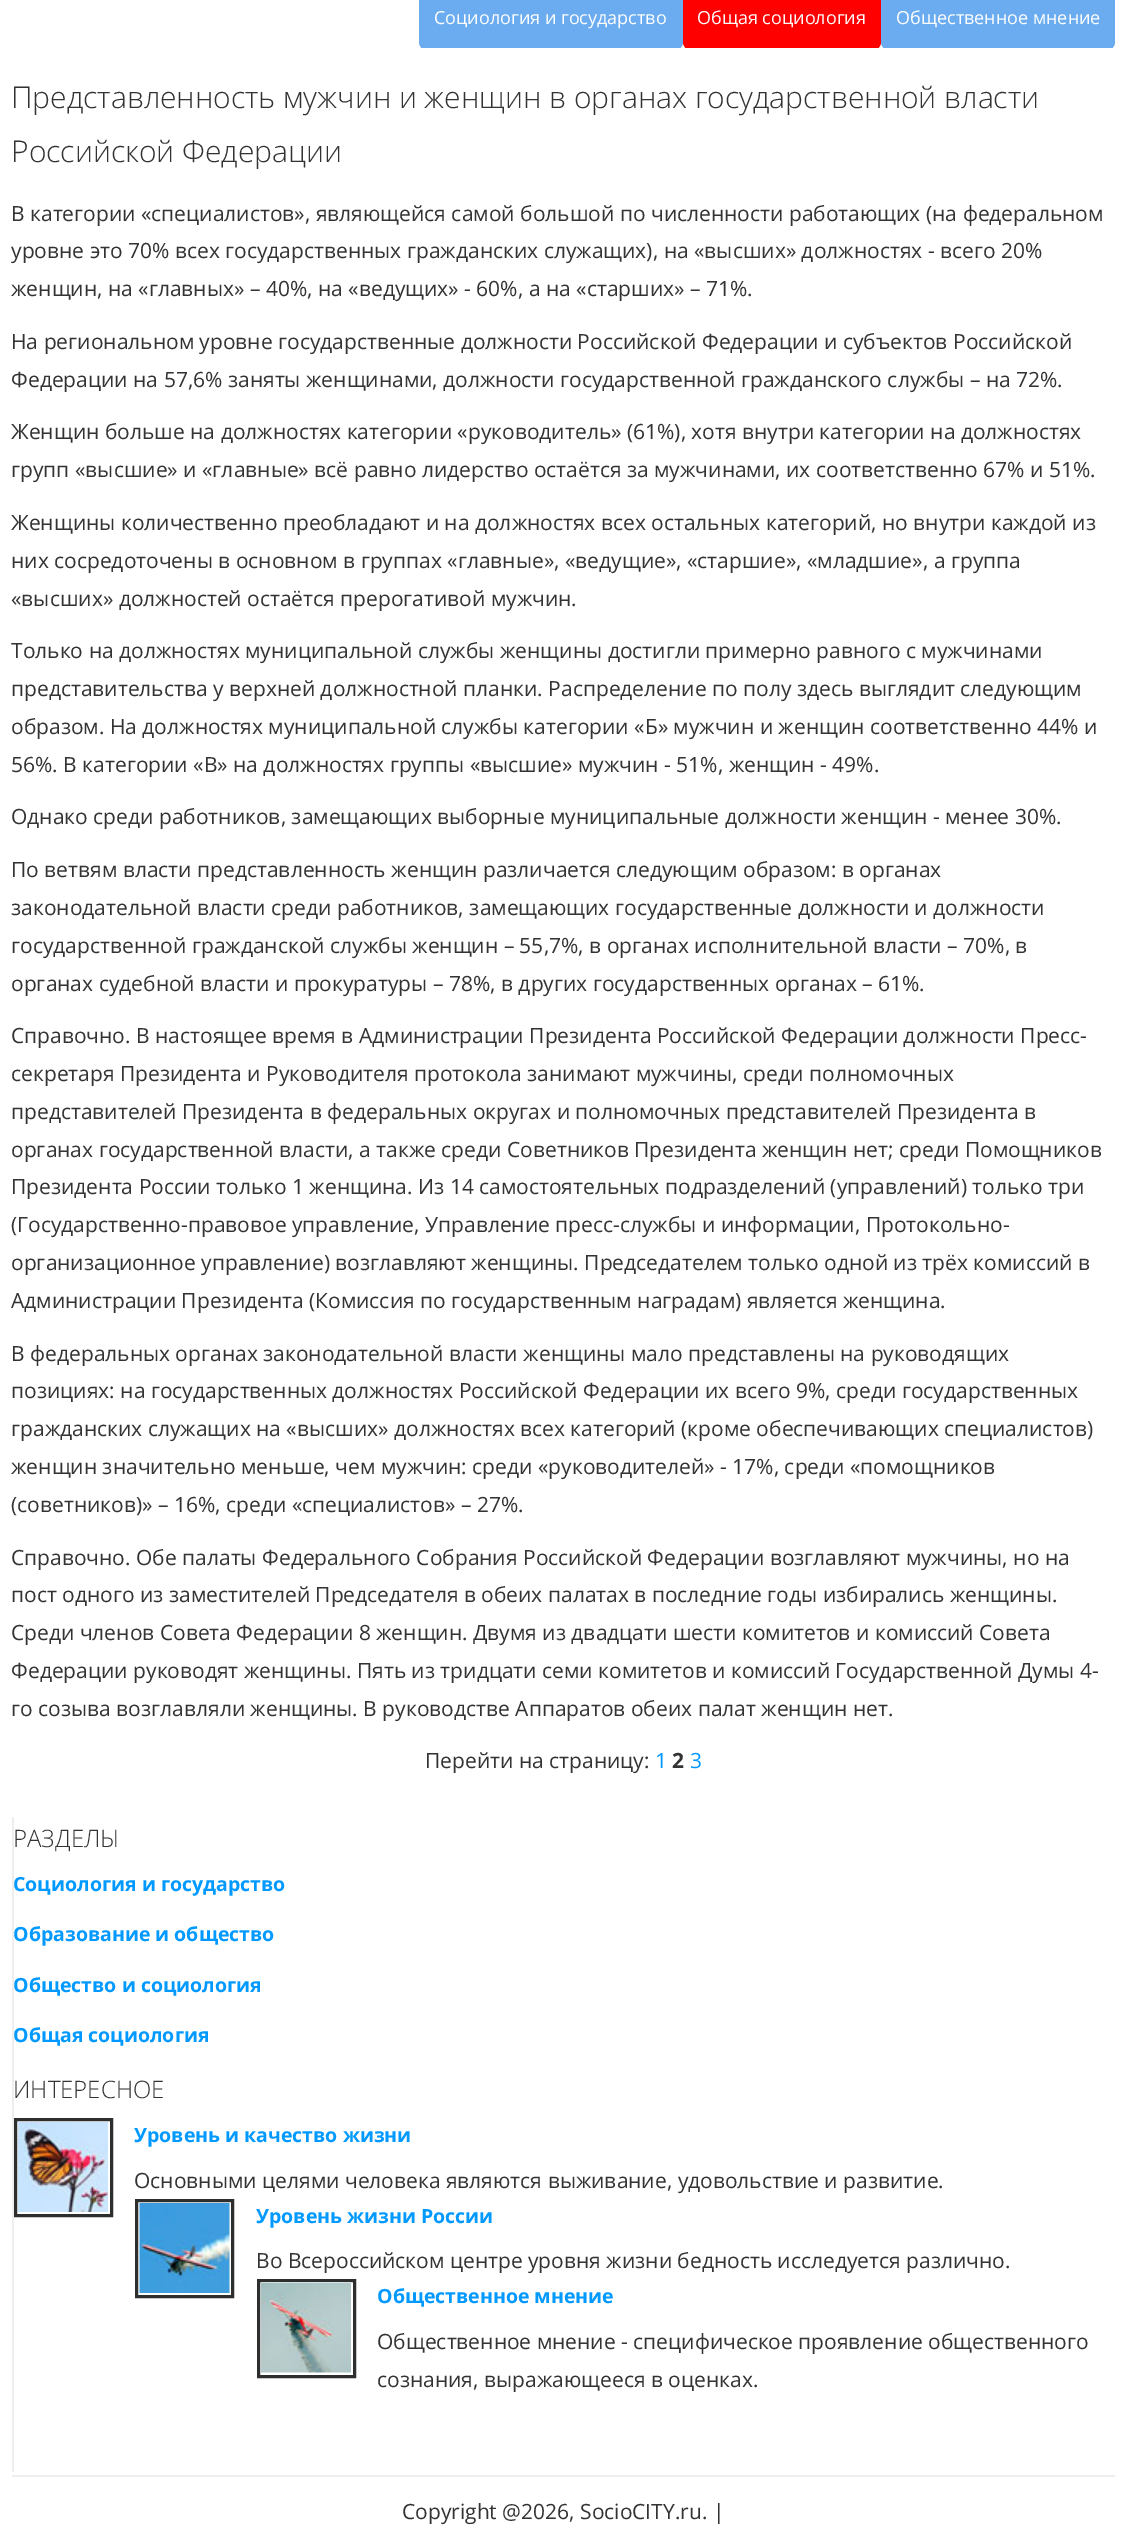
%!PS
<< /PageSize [1126 2532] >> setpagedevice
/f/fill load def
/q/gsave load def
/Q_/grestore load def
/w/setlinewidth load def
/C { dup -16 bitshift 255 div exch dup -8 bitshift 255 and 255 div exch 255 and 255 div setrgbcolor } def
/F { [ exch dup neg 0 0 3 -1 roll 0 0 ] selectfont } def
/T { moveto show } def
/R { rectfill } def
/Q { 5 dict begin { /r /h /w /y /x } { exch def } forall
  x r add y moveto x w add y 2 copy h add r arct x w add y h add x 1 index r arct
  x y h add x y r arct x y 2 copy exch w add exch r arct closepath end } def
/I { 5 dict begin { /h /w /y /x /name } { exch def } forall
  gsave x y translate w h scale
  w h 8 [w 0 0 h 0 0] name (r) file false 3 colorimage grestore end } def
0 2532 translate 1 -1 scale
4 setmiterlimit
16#FFFFFF C
0 0 1126 2532 R
q
419 0 696 48 rectclip
16#6BACF0 C
419 -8 264 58 8 Q f
Q_
/OpenSans-Regular 18 F
(Социология и государство) 434 24 T
q
419 0 696 48 rectclip
16#FF0000 C
683 -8 198 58 8 Q f
Q_
(Общая социология) 697 24 T
q
419 0 696 48 rectclip
16#6BACF0 C
881 -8 234 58 8 Q f
Q_
(Общественное мнение) 896 24 T
/OpenSans-Light 30 F
16#333333 C
(Представленность мужчин и женщин в органах государственной власти) 11 108 T
(Российской Федерации) 11 162 T
/OpenSans-Regular 21 F
(В категории «специалистов», являющейся самой большой по численности работающих \(на федеральном) 11 221 T
(уровне это 70% всех государственных гражданских служащих\), на «высших» должностях - всего 20%) 11 258 T
(женщин, на «главных» – 40%, на «ведущих» - 60%, а на «старших» – 71%.) 11 296 T
(На региональном уровне государственные должности Российской Федерации и субъектов Российской) 11 349 T
(Федерации на 57,6% заняты женщинами, должности государственной гражданского службы – на 72%.) 11 387 T
(Женщин больше на должностях категории «руководитель» \(61%\), хотя внутри категории на должностях) 11 439 T
(групп «высшие» и «главные» всё равно лидерство остаётся за мужчинами, их соответственно 67% и 51%.) 11 477 T
(Женщины количественно преобладают и на должностях всех остальных категорий, но внутри каждой из) 11 530 T
(них сосредоточены в основном в группах «главные», «ведущие», «старшие», «младшие», а группа) 11 568 T
(«высших» должностей остаётся прерогативой мужчин.) 11 606 T
(Только на должностях муниципальной службы женщины достигли примерно равного с мужчинами) 11 658 T
(представительства у верхней должностной планки. Распределение по полу здесь выглядит следующим) 11 696 T
(образом. На должностях муниципальной службы категории «Б» мужчин и женщин соответственно 44% и) 11 734 T
(56%. В категории «В» на должностях группы «высшие» мужчин - 51%, женщин - 49%.) 11 772 T
(Однако среди работников, замещающих выборные муниципальные должности женщин - менее 30%.) 11 824 T
(По ветвям власти представленность женщин различается следующим образом: в органах) 11 877 T
(законодательной власти среди работников, замещающих государственные должности и должности) 11 915 T
(государственной гражданской службы женщин – 55,7%, в органах исполнительной власти – 70%, в) 11 953 T
(органах судебной власти и прокуратуры – 78%, в других государственных органах – 61%.) 11 991 T
(Справочно. В настоящее время в Администрации Президента Российской Федерации должности Пресс-) 11 1043 T
(секретаря Президента и Руководителя протокола занимают мужчины, среди полномочных) 11 1081 T
(представителей Президента в федеральных округах и полномочных представителей Президента в) 11 1119 T
(органах государственной власти, а также среди Советников Президента женщин нет; среди Помощников) 11 1157 T
(Президента России только 1 женщина. Из 14 самостоятельных подразделений \(управлений\) только три) 11 1194 T
(\(Государственно-правовое управление, Управление пресс-службы и информации, Протокольно-) 11 1232 T
(организационное управление\) возглавляют женщины. Председателем только одной из трёх комиссий в) 11 1270 T
(Администрации Президента \(Комиссия по государственным наградам\) является женщина.) 11 1308 T
(В федеральных органах законодательной власти женщины мало представлены на руководящих) 11 1361 T
(позициях: на государственных должностях Российской Федерации их всего 9%, среди государственных) 11 1398 T
(гражданских служащих на «высших» должностях всех категорий \(кроме обеспечивающих специалистов\)) 11 1436 T
(женщин значительно меньше, чем мужчин: среди «руководителей» - 17%, среди «помощников) 11 1474 T
(\(советников\)» – 16%, среди «специалистов» – 27%.) 11 1512 T
(Справочно. Обе палаты Федерального Собрания Российской Федерации возглавляют мужчины, но на) 11 1565 T
(пост одного из заместителей Председателя в обеих палатах в последние годы избирались женщины.) 11 1602 T
(Среди членов Совета Федерации 8 женщин. Двумя из двадцати шести комитетов и комиссий Совета) 11 1640 T
(Федерации руководят женщины. Пять из тридцати семи комитетов и комиссий Государственной Думы 4-) 11 1678 T
(го созыва возглавляли женщины. В руководстве Аппаратов обеих палат женщин нет.) 11 1716 T
(Перейти на страницу:) 425 1768 T
16#0099FF C
(1) 655 1768 T
/OpenSans-Bold 21 F
16#333333 C
(2) 672 1768 T
/OpenSans-Regular 21 F
16#0099FF C
(3) 690 1768 T
16#EEEEEE C
12 1817 2 655 R
/OpenSans-Light 24 F
16#333333 C
(РАЗДЕЛЫ) 13 1847 T
/OpenSans-Bold 19.5 F
16#0099FF C
(Социология и государство) 13 1891 T
(Образование и общество) 13 1941 T
(Общество и социология) 13 1992 T
(Общая социология) 13 2042 T
/OpenSans-Light 24 F
16#333333 C
(ИНТЕРЕСНОЕ) 13 2098 T
16#2D2F2F C
3 w
15.5 2119.5 96 96 rectstroke
(1.rgb) 18 2122 90 90 I
/OpenSans-Bold 19.5 F
16#0099FF C
(Уровень и качество жизни) 134 2142 T
/OpenSans-Regular 21 F
16#333333 C
(Основными целями человека являются выживание, удовольствие и развитие.) 134 2188 T
16#2D2F2F C
136.5 2200.5 96 96 rectstroke
(2.rgb) 139 2203 91 90 I
/OpenSans-Bold 19.5 F
16#0099FF C
(Уровень жизни России) 256 2223 T
/OpenSans-Regular 21 F
16#333333 C
(Во Всероссийском центре уровня жизни бедность исследуется различно.) 256 2268 T
16#2D2F2F C
258.5 2280.5 96 96 rectstroke
(3.rgb) 261 2282 90 91 I
/OpenSans-Bold 19.5 F
16#0099FF C
(Общественное мнение) 377 2303 T
/OpenSans-Regular 21 F
16#333333 C
(Общественное мнение - специфическое проявление общественного) 377 2349 T
(сознания, выражающееся в оценках.) 377 2387 T
16#EEEEEE C
12 2475 1103 2 R
16#333333 C
(Copyright @2026, SocioCITY.ru. |) 402 2519 T
showpage
